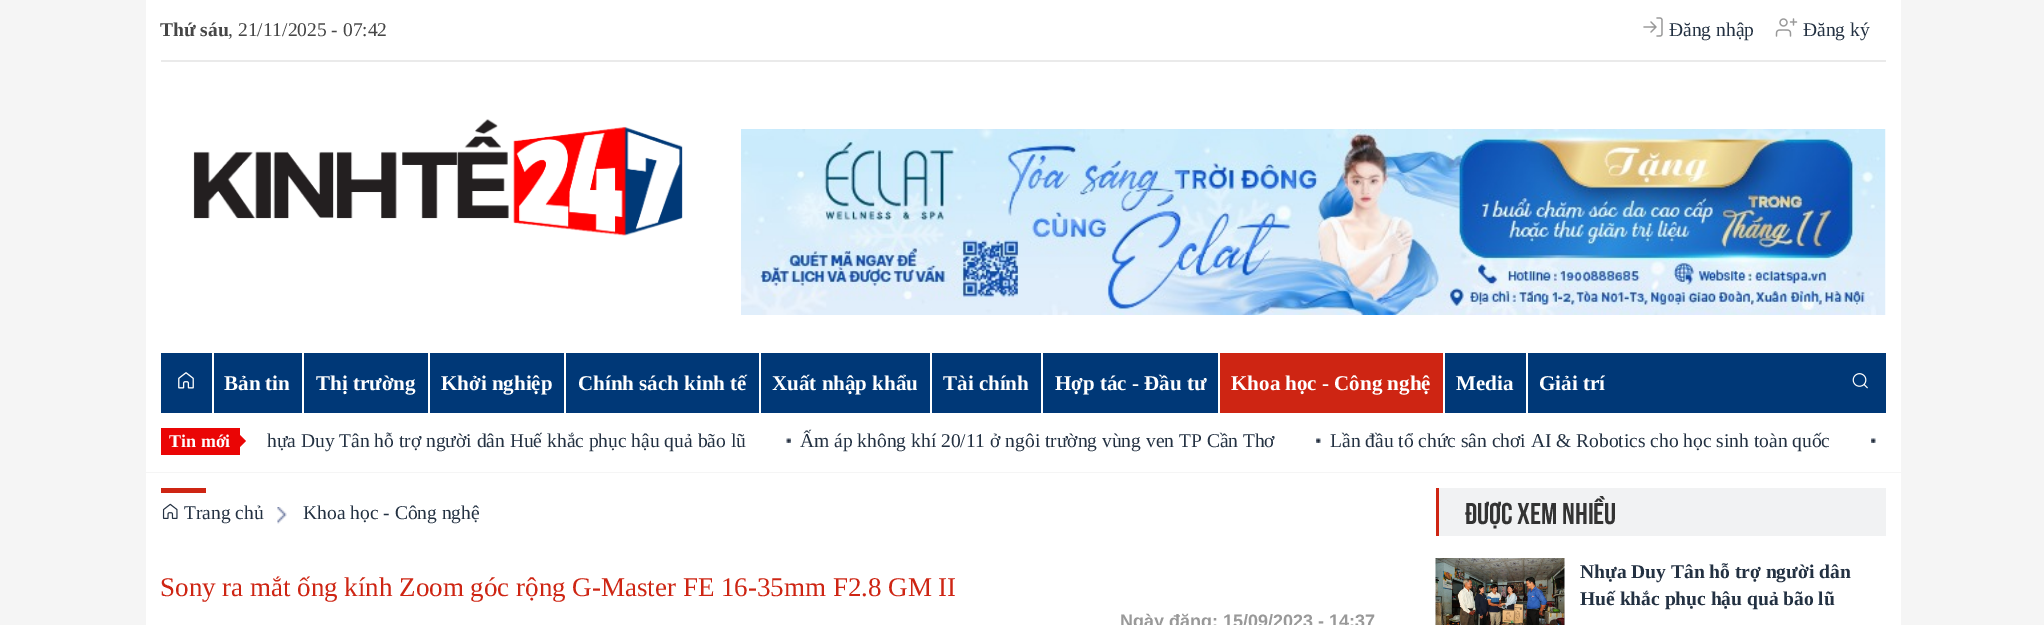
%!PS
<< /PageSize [2044 625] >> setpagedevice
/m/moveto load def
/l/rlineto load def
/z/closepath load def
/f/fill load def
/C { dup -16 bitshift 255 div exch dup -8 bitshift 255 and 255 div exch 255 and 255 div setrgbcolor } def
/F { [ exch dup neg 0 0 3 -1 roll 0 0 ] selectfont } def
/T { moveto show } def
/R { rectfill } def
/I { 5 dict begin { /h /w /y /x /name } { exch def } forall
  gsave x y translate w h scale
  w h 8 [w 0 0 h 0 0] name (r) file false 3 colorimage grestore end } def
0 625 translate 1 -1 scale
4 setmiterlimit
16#F5F5F5 C
0 0 2044 625 R
16#FFFFFF C
146 0 1755 472 R
16#EAEAEA C
161 60 1725 2 R
/LiberationSerif-Bold 19.5 F
16#464646 C
(Thứ sáu) 160 36 T
/LiberationSerif-Regular 19.5 F
(, 21/11/2025 - 07:42) 228 36 T
(1.rgb) 1643 17 20 20 I
16#233142 C
(Đăng nhập) 1669 36 T
(2.rgb) 1775 18 23 19 I
(Đăng ký) 1803 36 T
(3.rgb) 193 119 490 117 I
(4.rgb) 741 129 1145 186 I
16#003877 C
161 353 1725 60 R
16#FFFFFF C
212 353 2 60 R
(5.rgb) 178 372 16 17 I
302 353 2 60 R
/LiberationSerif-Bold 21 F
(Bản tin) 224 390 T
428 353 2 60 R
(Thị trường) 316 390 T
564 353 2 60 R
(Khởi nghiệp) 441 390 T
759 353 2 60 R
(Chính sách kinh tế) 578 390 T
930 353 2 60 R
(Xuất nhập khẩu) 772 390 T
1041 353 2 60 R
(Tài chính) 943 390 T
1218 353 2 60 R
(Hợp tác - Đầu tư) 1055 390 T
16#CE2513 C
1220 353 223 60 R
16#FFFFFF C
1443 353 2 60 R
(Khoa học - Công nghệ) 1231 390 T
1526 353 2 60 R
(Media) 1456 390 T
(Giải trí) 1539 390 T
(6.rgb) 1852 373 16 16 I
16#EA0505 C
161 428 79 27 R
/LiberationSerif-Bold 18 F
16#FFFFFF C
(Tin mới) 169 447 T
16#EA0505 C
240 447 m 0 -12 l 6 6 l z f
/LiberationSerif-Regular 19.5 F
16#233142 C
(hựa Duy Tân hỗ trợ người dân Huế khắc phục hậu quả bão lũ) 267 447 T
(7.rgb) 786 438 5 5 I
(Ấm áp không khí 20/11 ở ngôi trường vùng ven TP Cần Thơ) 800 447 T
(8.rgb) 1316 438 5 5 I
(Lần đầu tổ chức sân chơi AI & Robotics cho học sinh toàn quốc) 1330 447 T
(8.rgb) 1871 438 5 5 I
16#FFFFFF C
146 473 1755 152 R
16#CE2513 C
161 488 45 5 R
(9.rgb) 162 503 16 16 I
16#233142 C
(Trang chủ) 184 519 T
(10.rgb) 277 507 10 17 I
(Khoa học - Công nghệ) 303 519 T
/LiberationSerif-Regular 27 F
16#CE2513 C
(Sony ra mắt ống kính Zoom góc rộng G-Master FE 16-35mm F2.8 GM II) 160 596 T
/LiberationSans-Bold 18 F
16#999999 C
(Ngày đăng: 15/09/2023 - 14:37) 1120 627 T
16#F1F2F3 C
1439 488 447 48 R
16#CE2513 C
1436 488 3 48 R
/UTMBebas-Regular 30 F
16#333333 C
(ĐƯỢC XEM NHIỀU) 1465 524 T
(11.rgb) 1435 558 130 67 I
/LiberationSerif-Bold 19.5 F
16#233142 C
(Nhựa Duy Tân hỗ trợ người dân) 1580 578 T
(Huế khắc phục hậu quả bão lũ) 1580 605 T
showpage
